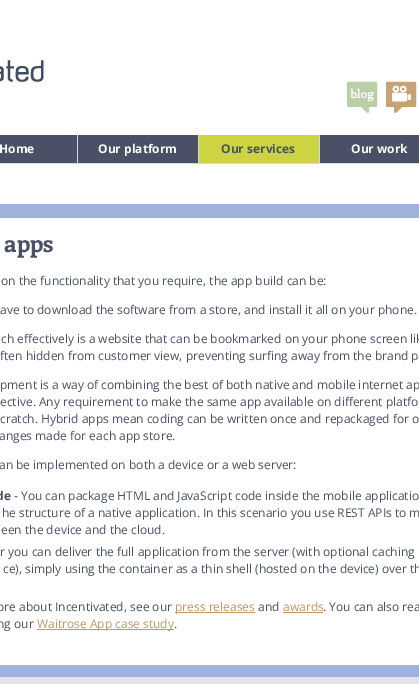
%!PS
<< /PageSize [419 684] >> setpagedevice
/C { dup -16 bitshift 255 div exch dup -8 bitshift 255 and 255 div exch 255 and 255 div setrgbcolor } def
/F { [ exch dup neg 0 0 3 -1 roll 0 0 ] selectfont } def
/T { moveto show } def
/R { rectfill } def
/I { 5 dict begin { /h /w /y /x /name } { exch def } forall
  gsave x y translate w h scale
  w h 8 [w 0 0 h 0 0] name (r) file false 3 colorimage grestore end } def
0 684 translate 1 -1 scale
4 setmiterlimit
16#E2E3E4 C
0 0 419 684 R
16#FFFFFF C
0 0 419 204 R
(1.rgb) 0 60 44 22 I
(2.rgb) 347 81 31 32 I
(3.rgb) 386 81 31 32 I
16#D0D8EB C
0 135 419 29 R
16#4A5065 C
0 135 77 28 R
/OpenSans-Bold 12 F
16#FFFFFF C
(Home) -1 153 T
16#4A5065 C
78 135 120 28 R
16#FFFFFF C
(Our platform) 98 153 T
16#CCD441 C
199 135 120 28 R
16#4A5065 C
(Our services) 221 153 T
320 135 99 28 R
16#FFFFFF C
(Our work) 351 153 T
16#A0B1DA C
0 204 419 14 R
16#FFFFFF C
0 218 419 447 R
/Enriqueta-Bold 24 F
16#4A5065 C
(apps) 4 252 T
/OpenSans-Regular 12 F
(on the functionality that you require, the app build can be:) 1 285 T
(ave to download the software from a store, and install it all on your phone.) 0 314 T
(ch effectively is a website that can be bookmarked on your phone screen lik) 1 343 T
(ften hidden from customer view, preventing surfing away from the brand p) 0 360 T
(pment is a way of combining the best of both native and mobile internet ap) 0 389 T
(ective. Any requirement to make the same app available on different platfo) 0 406 T
(cratch. Hybrid apps mean coding can be written once and repackaged for o) 0 423 T
(anges made for each app store.) -1 440 T
(an be implemented on both a device or a web server:) -1 469 T
/OpenSans-Bold 12 F
(de) -4 500 T
/OpenSans-Regular 12 F
(- You can package HTML and JavaScript code inside the mobile applicatio) 14 500 T
(he structure of a native application. In this scenario you use REST APIs to m) 2 517 T
(een the device and the cloud.) 1 534 T
(r you can deliver the full application from the server \(with optional caching) 0 556 T
(ce\), simply using the container as a thin shell \(hosted on the device\) over th) 3 573 T
(ore about Incentivated, see our) -3 611 T
16#C29762 C
175 612 80 1 R
(press releases) 175 611 T
16#4A5065 C
(and) 258 611 T
16#C29762 C
(awards) 283 611 T
283 612 40 1 R
16#4A5065 C
(. You can also rea) 323 611 T
(ng our) -3 628 T
16#C29762 C
37 629 137 1 R
(Waitrose App case study) 37 628 T
16#4A5065 C
(.) 174 628 T
16#A0B1DA C
0 665 419 12 R
showpage
